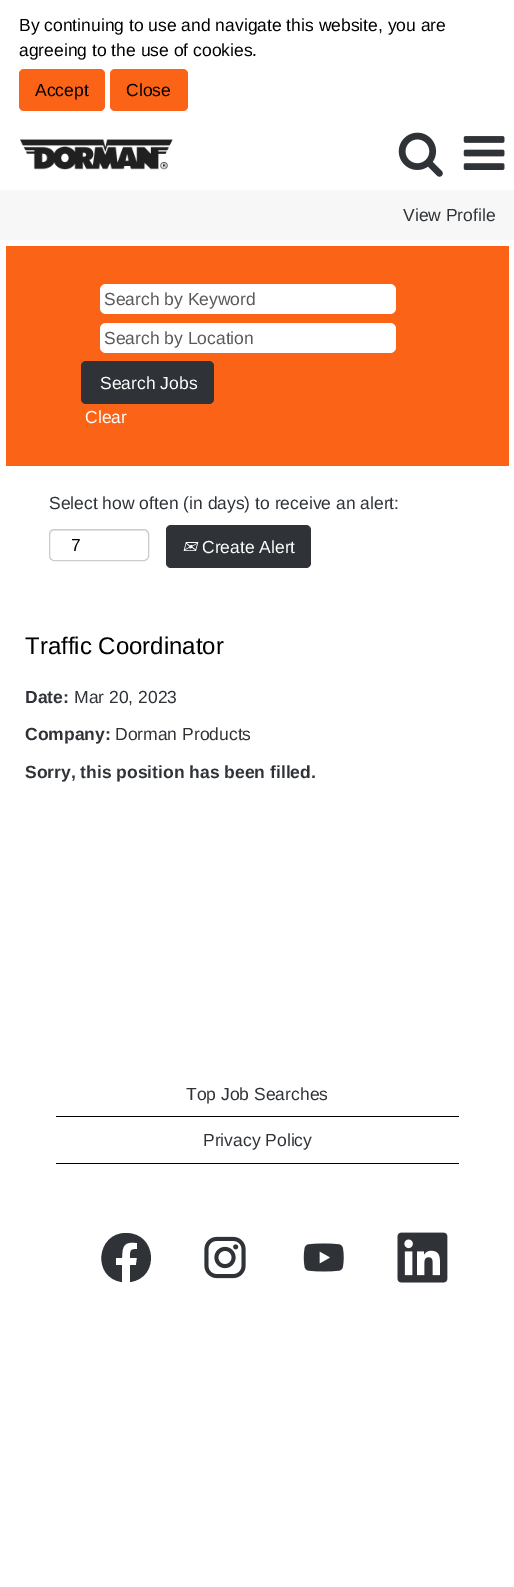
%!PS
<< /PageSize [514 1587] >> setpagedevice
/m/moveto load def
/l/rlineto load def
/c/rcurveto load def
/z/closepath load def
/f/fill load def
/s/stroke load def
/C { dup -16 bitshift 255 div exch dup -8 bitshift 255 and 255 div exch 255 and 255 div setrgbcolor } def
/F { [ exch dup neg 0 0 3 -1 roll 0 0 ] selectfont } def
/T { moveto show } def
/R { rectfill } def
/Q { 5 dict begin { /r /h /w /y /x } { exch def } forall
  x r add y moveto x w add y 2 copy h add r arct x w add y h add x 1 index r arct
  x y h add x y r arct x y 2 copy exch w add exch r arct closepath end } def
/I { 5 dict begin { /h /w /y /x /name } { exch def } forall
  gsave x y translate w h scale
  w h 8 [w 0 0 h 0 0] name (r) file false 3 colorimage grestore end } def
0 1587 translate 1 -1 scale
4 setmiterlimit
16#FFFFFF C
0 0 514 1587 R
/LiberationSans-Regular 17.5 F
16#000000 C
(By continuing to use and navigate this website, you are) 19 31 T
(agreeing to the use of cookies.) 19 56 T
16#FB6317 C
19 69 86 42 5 Q f
16#000000 C
(Accept) 35 96 T
16#FB6317 C
110 69 78 42 5 Q f
16#000000 C
(Close) 126 96 T
(1.rgb) 20 139 153 31 I
(2.rgb) 398 132 45 45 I
(3.rgb) 463 136 42 34 I
16#F7F7F7 C
0 190 514 50 R
16#2F3338 C
(View Profile) 403 221 T
16#FB6317 C
6 246 503 220 R
16#FFFFFF C
100 284 296 30 6 Q f
16#595959 C
(Search by Keyword) 104 305 T
16#FFFFFF C
100 323 296 30 6 Q f
16#595959 C
(Search by Location) 104 344 T
16#2F3338 C
81 361 133 43 5 Q f
16#FFFFFF C
(Search Jobs) 100 389 T
(Clear) 85 423 T
16#2F3338 C
(Select how often \(in days\) to receive an alert:) 49 509 T
16#ECECEC C
54 531 m 90 0 l 2 0 4 2 4 4 c 0 -9 -15 -5 -19 -5 c -60 0 l -4 0 -19 -4 -19 5 c 0 -2 2 -4 4 -4 c z f
16#CCCCCC C
49.5 529.5 99 31 4.5 Q s
16#000000 C
(7) 71 551 T
16#2F3338 C
166 525 145 43 5 Q f
/DejaVuSans-Italic 17.5 F
16#FFFFFF C
(✉) 182 553 T
/LiberationSans-Regular 17.5 F
(Create Alert) 202 553 T
/LiberationSans-Regular 24 F
16#000000 C
(Traffic Coordinator) 25 654 T
/LiberationSans-Bold 17.5 F
16#2F3338 C
(Date:) 25 703 T
/LiberationSans-Regular 17.5 F
(Mar 20, 2023) 74 703 T
/LiberationSans-Bold 17.5 F
(Company:) 25 740 T
/LiberationSans-Regular 17.5 F
(Dorman Products) 115 740 T
/LiberationSans-Bold 17.5 F
(Sorry, this position has been filled.) 25 778 T
16#000000 C
56 1116 403 1 R
/LiberationSans-Regular 17.5 F
16#2F3338 C
(Top Job Searches) 186 1100 T
16#000000 C
56 1163 403 1 R
16#2F3338 C
(Privacy Policy) 203 1146 T
126 1233 m -30 0 -34 45 -4 49 c 0 -17 l -6 0 l 0 -7 l 6 0 l 0 -12 2 -17 15 -15 c 0 6 l -7 0 -7 2 -7 9 c 7 0 l -1 7 l -6 0 l 0 17 l 30 -4 27 -49 -4 -49 c z f
(4.rgb) 204 1236 42 43 I
(5.rgb) 303 1243 41 29 I
(6.rgb) 397 1232 51 51 I
showpage
